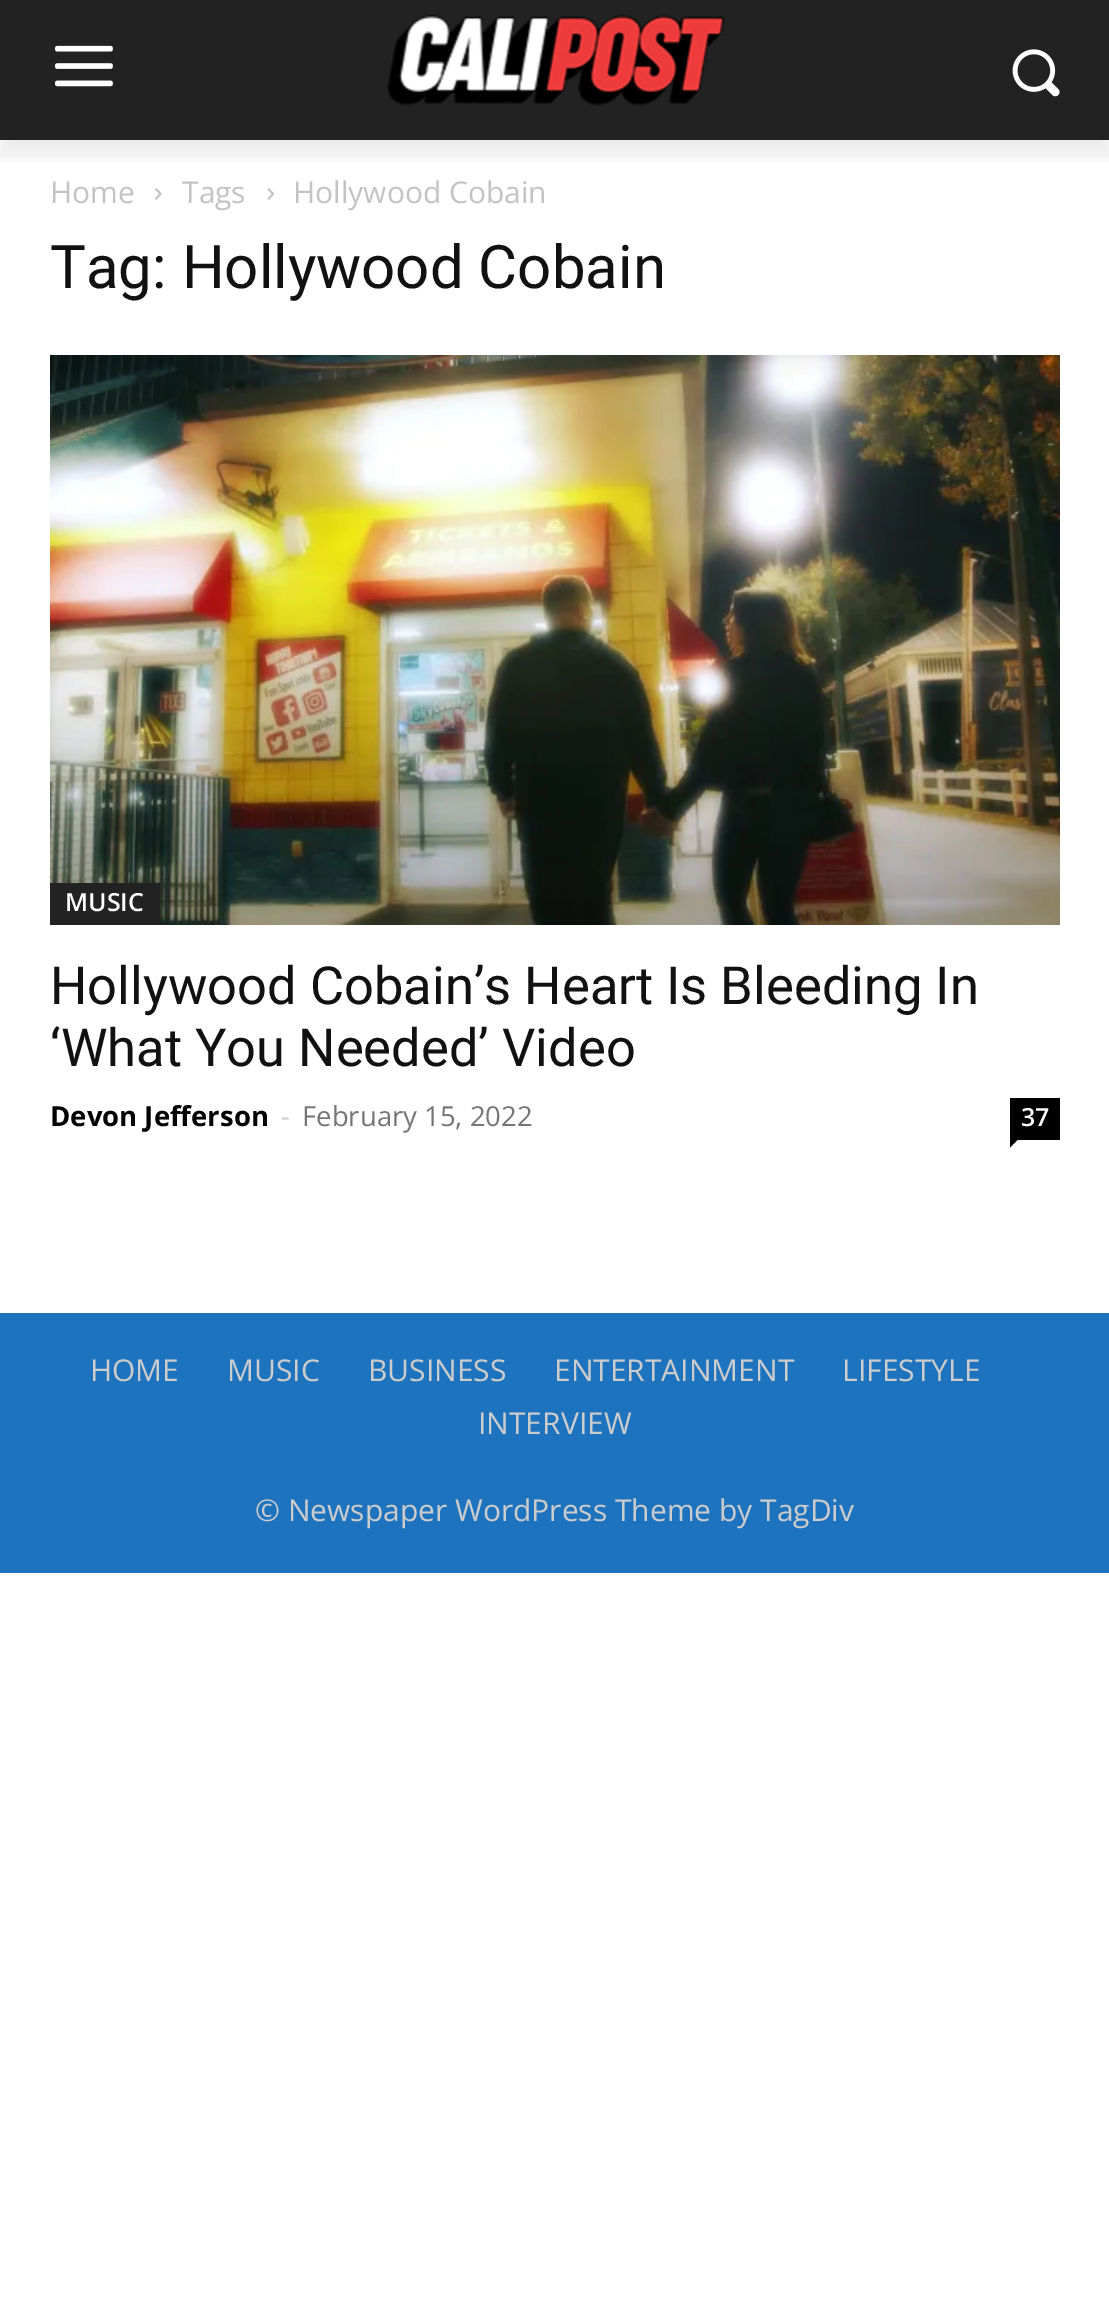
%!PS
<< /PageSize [1109 2322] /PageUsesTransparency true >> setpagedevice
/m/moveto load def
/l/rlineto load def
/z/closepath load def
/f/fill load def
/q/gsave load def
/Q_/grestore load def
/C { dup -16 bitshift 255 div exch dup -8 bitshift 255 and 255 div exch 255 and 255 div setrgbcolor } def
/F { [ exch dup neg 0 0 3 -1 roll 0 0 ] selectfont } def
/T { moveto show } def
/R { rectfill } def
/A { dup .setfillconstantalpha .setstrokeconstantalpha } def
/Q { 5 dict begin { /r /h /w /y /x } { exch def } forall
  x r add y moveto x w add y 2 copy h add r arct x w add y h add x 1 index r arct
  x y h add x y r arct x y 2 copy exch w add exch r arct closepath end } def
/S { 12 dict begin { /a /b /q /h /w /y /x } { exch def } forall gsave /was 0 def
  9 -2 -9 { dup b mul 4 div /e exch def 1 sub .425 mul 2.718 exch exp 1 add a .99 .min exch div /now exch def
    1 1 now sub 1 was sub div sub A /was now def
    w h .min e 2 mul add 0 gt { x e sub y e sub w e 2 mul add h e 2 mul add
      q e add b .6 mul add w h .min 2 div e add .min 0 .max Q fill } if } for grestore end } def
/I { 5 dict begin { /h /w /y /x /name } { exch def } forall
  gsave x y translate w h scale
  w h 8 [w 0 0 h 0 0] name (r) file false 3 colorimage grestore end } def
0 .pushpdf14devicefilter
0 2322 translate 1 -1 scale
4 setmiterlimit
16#FFFFFF C
0 0 1109 2322 R
16#222222 C
0 0 1109 140 R
(1.rgb) 55 45 58 42 I
(2.rgb) 387 15 338 91 I
(3.rgb) 1012 49 48 48 I
q
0 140 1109 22 rectclip
16#000000 C
0 15 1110 140 0 10 .08 S
Q_
/OpenSans-Regular 30 F
16#C3C3C3 C
(Home) 50 203 T
(4.rgb) 155 188 7 12 I
(Tags) 182 203 T
(5.rgb) 267 188 8 12 I
(Hollywood Cobain) 293 203 T
/Roboto-Regular 60 F
16#111111 C
(Tag: Hollywood Cobain) 50 288 T
(6.rgb) 50 355 1010 570 I
16#222222 C
50 883 110 42 R
/OpenSans-SemiBold 25 F
16#FFFFFF C
(MUSIC) 65 911 T
/Roboto-Regular 52.5 F
16#111111 C
(Hollywood Cobain’s Heart Is Bleeding In) 50 1004 T
(‘What You Needed’ Video) 50 1066 T
/OpenSans-Bold 27.5 F
16#000000 C
(Devon Jefferson) 50 1126 T
/OpenSans-Regular 27.5 F
16#CCCCCC C
(-) 281 1126 T
16#767676 C
(February 15, 2022) 302 1126 T
16#000000 C
1010 1098 50 42 R
/OpenSans-SemiBold 25 F
16#FFFFFF C
(37) 1021 1126 T
16#000000 C
1010 1140 m 7.5 0 l -7.5 7.5 l z f
16#1E73BE C
0 1313 1109 260 R
/OpenSans-Regular 30 F
16#CCCCCC C
(HOME) 90 1381 T
(MUSIC) 227 1381 T
(BUSINESS) 368 1381 T
(ENTERTAINMENT) 554 1381 T
(LIFESTYLE) 842 1381 T
(INTERVIEW) 478 1434 T
(© Newspaper WordPress Theme by TagDiv) 255 1521 T
.poppdf14devicefilter showpage
